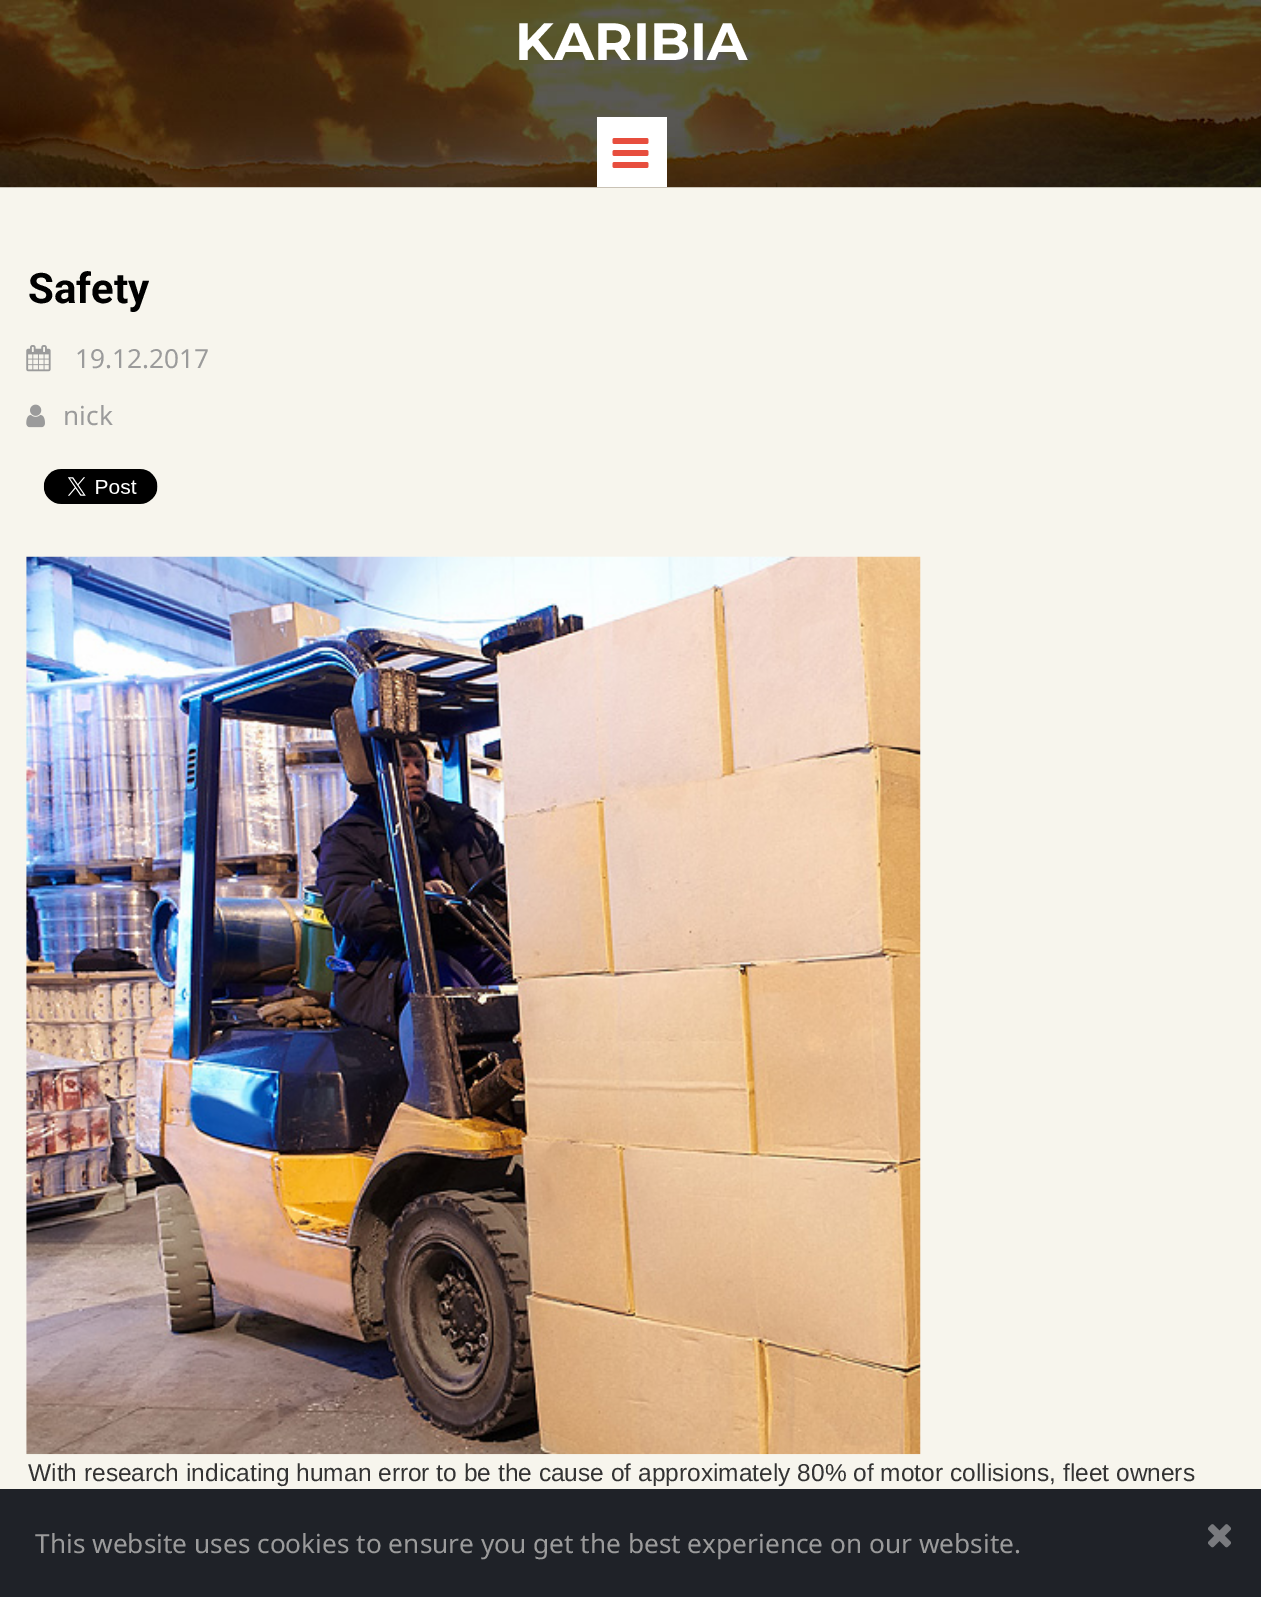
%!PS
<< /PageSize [1261 1597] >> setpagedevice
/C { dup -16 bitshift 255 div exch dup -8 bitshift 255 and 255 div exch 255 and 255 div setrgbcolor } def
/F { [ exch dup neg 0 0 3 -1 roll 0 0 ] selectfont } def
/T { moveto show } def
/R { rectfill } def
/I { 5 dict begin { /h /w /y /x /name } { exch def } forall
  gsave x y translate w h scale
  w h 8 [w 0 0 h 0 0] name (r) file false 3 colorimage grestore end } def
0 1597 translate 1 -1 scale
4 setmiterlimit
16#F7F5ED C
0 0 1261 1597 R
(1.rgb) 0 0 1261 188 I
/Montserrat-Bold 52.5 F
16#FFFFFF C
(KARIBIA) 515 60 T
597 117 70 70 R
(2.rgb) 612 138 37 30 I
/Roboto-Bold 42 F
16#000000 C
(Safety) 28 303 T
(3.rgb) 26 345 25 27 I
/NotoSans-Regular 26.25 F
16#9B9B9B C
(19.12.2017) 75 368 T
(4.rgb) 26 404 19 24 I
(nick) 63 425 T
(5.rgb) 43 469 115 35 I
(6.rgb) 26 556 895 899 I
/LiberationSans-Regular 24.5 F
16#333333 C
(With research indicating human error to be the cause of approximately 80% of motor collisions, fleet owners) 28 1481 T
16#1F2228 C
0 1489 1261 108 R
/NotoSans-Regular 26.25 F
16#9B9B9B C
(This website uses cookies to ensure you get the best experience on our website.) 35 1553 T
(7.rgb) 1208 1524 23 24 I
showpage
